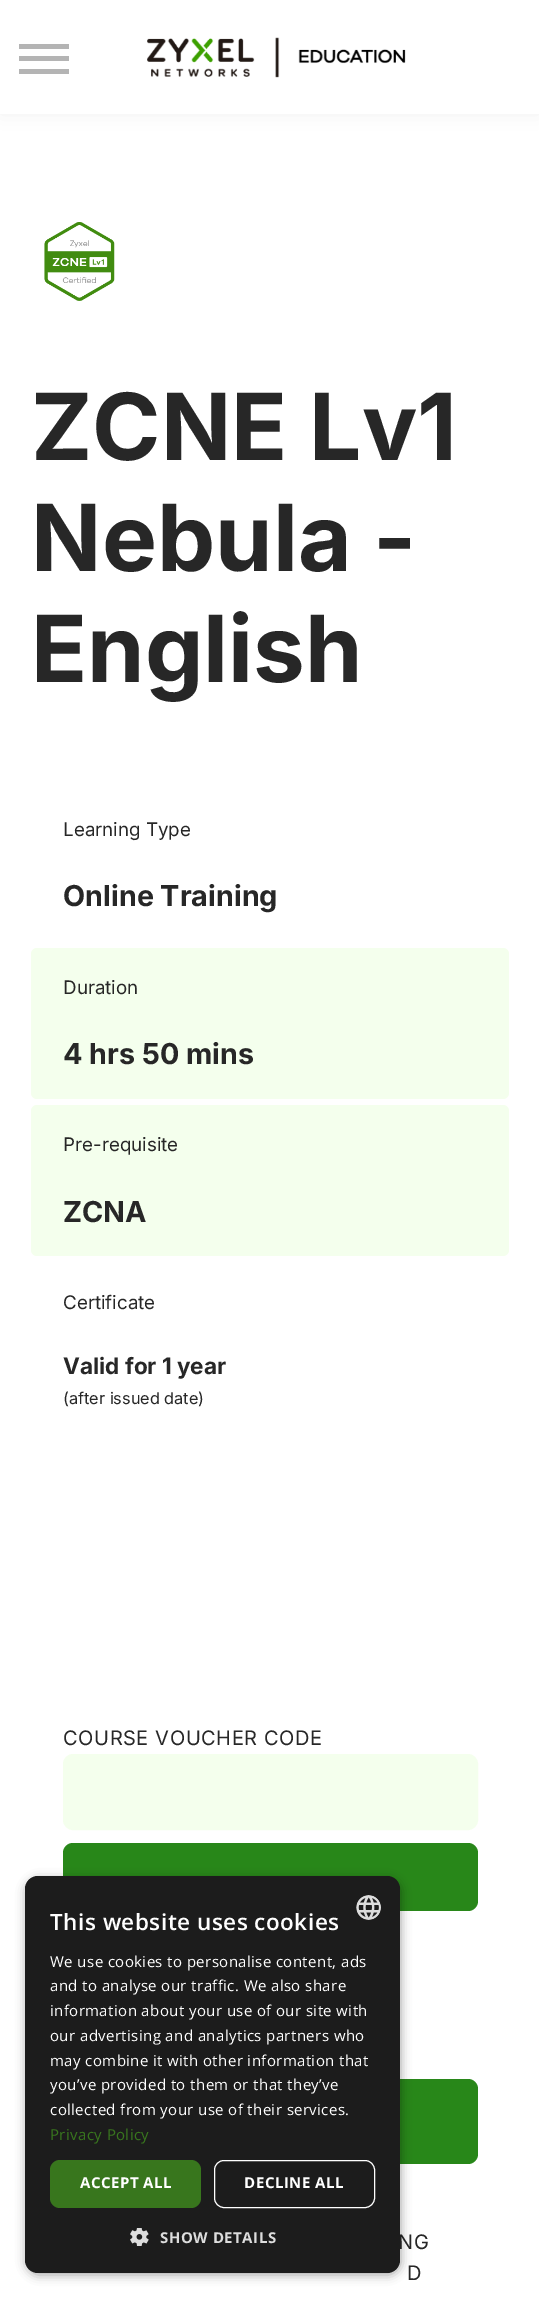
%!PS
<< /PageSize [539 2297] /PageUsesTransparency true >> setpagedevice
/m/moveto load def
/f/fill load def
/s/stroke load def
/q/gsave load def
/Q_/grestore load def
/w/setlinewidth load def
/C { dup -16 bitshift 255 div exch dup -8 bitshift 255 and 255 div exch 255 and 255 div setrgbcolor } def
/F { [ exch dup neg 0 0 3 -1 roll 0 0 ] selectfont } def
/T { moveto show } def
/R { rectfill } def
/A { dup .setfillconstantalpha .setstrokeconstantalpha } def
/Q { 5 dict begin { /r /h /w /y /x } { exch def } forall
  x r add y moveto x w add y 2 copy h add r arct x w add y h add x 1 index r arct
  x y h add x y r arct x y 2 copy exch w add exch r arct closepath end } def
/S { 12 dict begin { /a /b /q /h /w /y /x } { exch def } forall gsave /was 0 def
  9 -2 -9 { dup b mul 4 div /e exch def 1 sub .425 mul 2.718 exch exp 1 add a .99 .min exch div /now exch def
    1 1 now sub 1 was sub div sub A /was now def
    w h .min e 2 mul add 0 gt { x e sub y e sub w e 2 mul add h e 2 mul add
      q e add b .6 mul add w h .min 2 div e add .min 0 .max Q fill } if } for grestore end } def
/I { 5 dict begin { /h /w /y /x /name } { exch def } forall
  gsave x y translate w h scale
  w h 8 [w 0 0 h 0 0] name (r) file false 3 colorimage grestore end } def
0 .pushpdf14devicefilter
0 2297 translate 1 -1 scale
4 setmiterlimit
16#FFFFFF C
0 0 539 2297 R
16#000000 C
0 0 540 114 0 9.5 .05 S
16#FFFFFF C
0 0 539 114 R
16#B4B4B4 C
19 69 50 5 R
19 44 50 5 R
19 56 50 5 R
(1.rgb) 147 37 259 41 I
(2.rgb) 44 222 71 79 I
/Inter-Bold 92.5 F
16#272727 C
(ZCNE Lv1) 31 460 T
(Nebula -) 31 571 T
(English) 31 682 T
/Inter-Regular 18.75 F
(Learning Type) 63 836 T
/Inter-Bold 28.75 F
(Online Training) 63 906 T
16#F4FFED C
31 948 478 151 6 Q f
/Inter-Regular 18.75 F
16#272727 C
(Duration) 63 994 T
/Inter-Bold 28.75 F
(4 hrs 50 mins) 63 1064 T
16#F4FFED C
31 1105 478 151 6 Q f
/Inter-Regular 18.75 F
16#272727 C
(Pre-requisite) 63 1151 T
/Inter-Bold 28.75 F
(ZCNA) 63 1222 T
/Inter-Regular 18.75 F
(Certificate) 63 1309 T
/Inter-Bold 22.5 F
(Valid for 1 year) 63 1374 T
/Inter-Regular 16.25 F
(\(after issued date\)) 63 1404 T
/Inter-Regular 20 F
63 1745 m .6 0 (COURSE VOUCHER CODE) ashow
16#F4FFED C
64.5 1755.5 412 73 8.5 Q q f Q_
3 w
s
16#288719 C
63 1843 415 68 10 Q f
63 2079 415 85 10 Q f
16#272727 C
398 2249 m .6 0 (NG) ashow
407 2280 m .6 0 (D) ashow
16#000000 C
26 1879 375 396 13 5 .35 S
16#1C1C1C C
25 1876 375 397 13 Q f
/OpenSans-SemiBold 22.5 F
16#FFFFFF C
50 1930 m .5 0 (This website uses cookies) ashow
(3.rgb) 356 1895 25 25 I
/OpenSans-Regular 15 F
50 1967 m .4 0 (We use cookies to personalise content, ads) ashow
50 1991 m .4 0 (and to analyse our traffic. We also share) ashow
50 2016 m .4 0 (information about your use of our site with) ashow
50 2041 m .4 0 (our advertising and analytics partners who) ashow
50 2066 m .4 0 (may combine it with other information that) ashow
50 2090 m .4 0 (you’ve provided to them or that they’ve) ashow
50 2115 m .4 0 (collected from your use of their services.) ashow
16#38761D C
50 2140 m .4 0 (Privacy Policy) ashow
50 2160 151 48 10 Q f
/OpenSans-Bold 15 F
16#FFFFFF C
80 2188 m .5 0 (ACCEPT ALL) ashow
1 w
214.5 2160.5 160 47 9.5 Q s
244 2188 m .5 0 (DECLINE ALL) ashow
(4.rgb) 130 2228 19 18 I
16#DDDDDD C
160 2243 m .5 0 (SHOW DETAILS) ashow
.poppdf14devicefilter showpage
